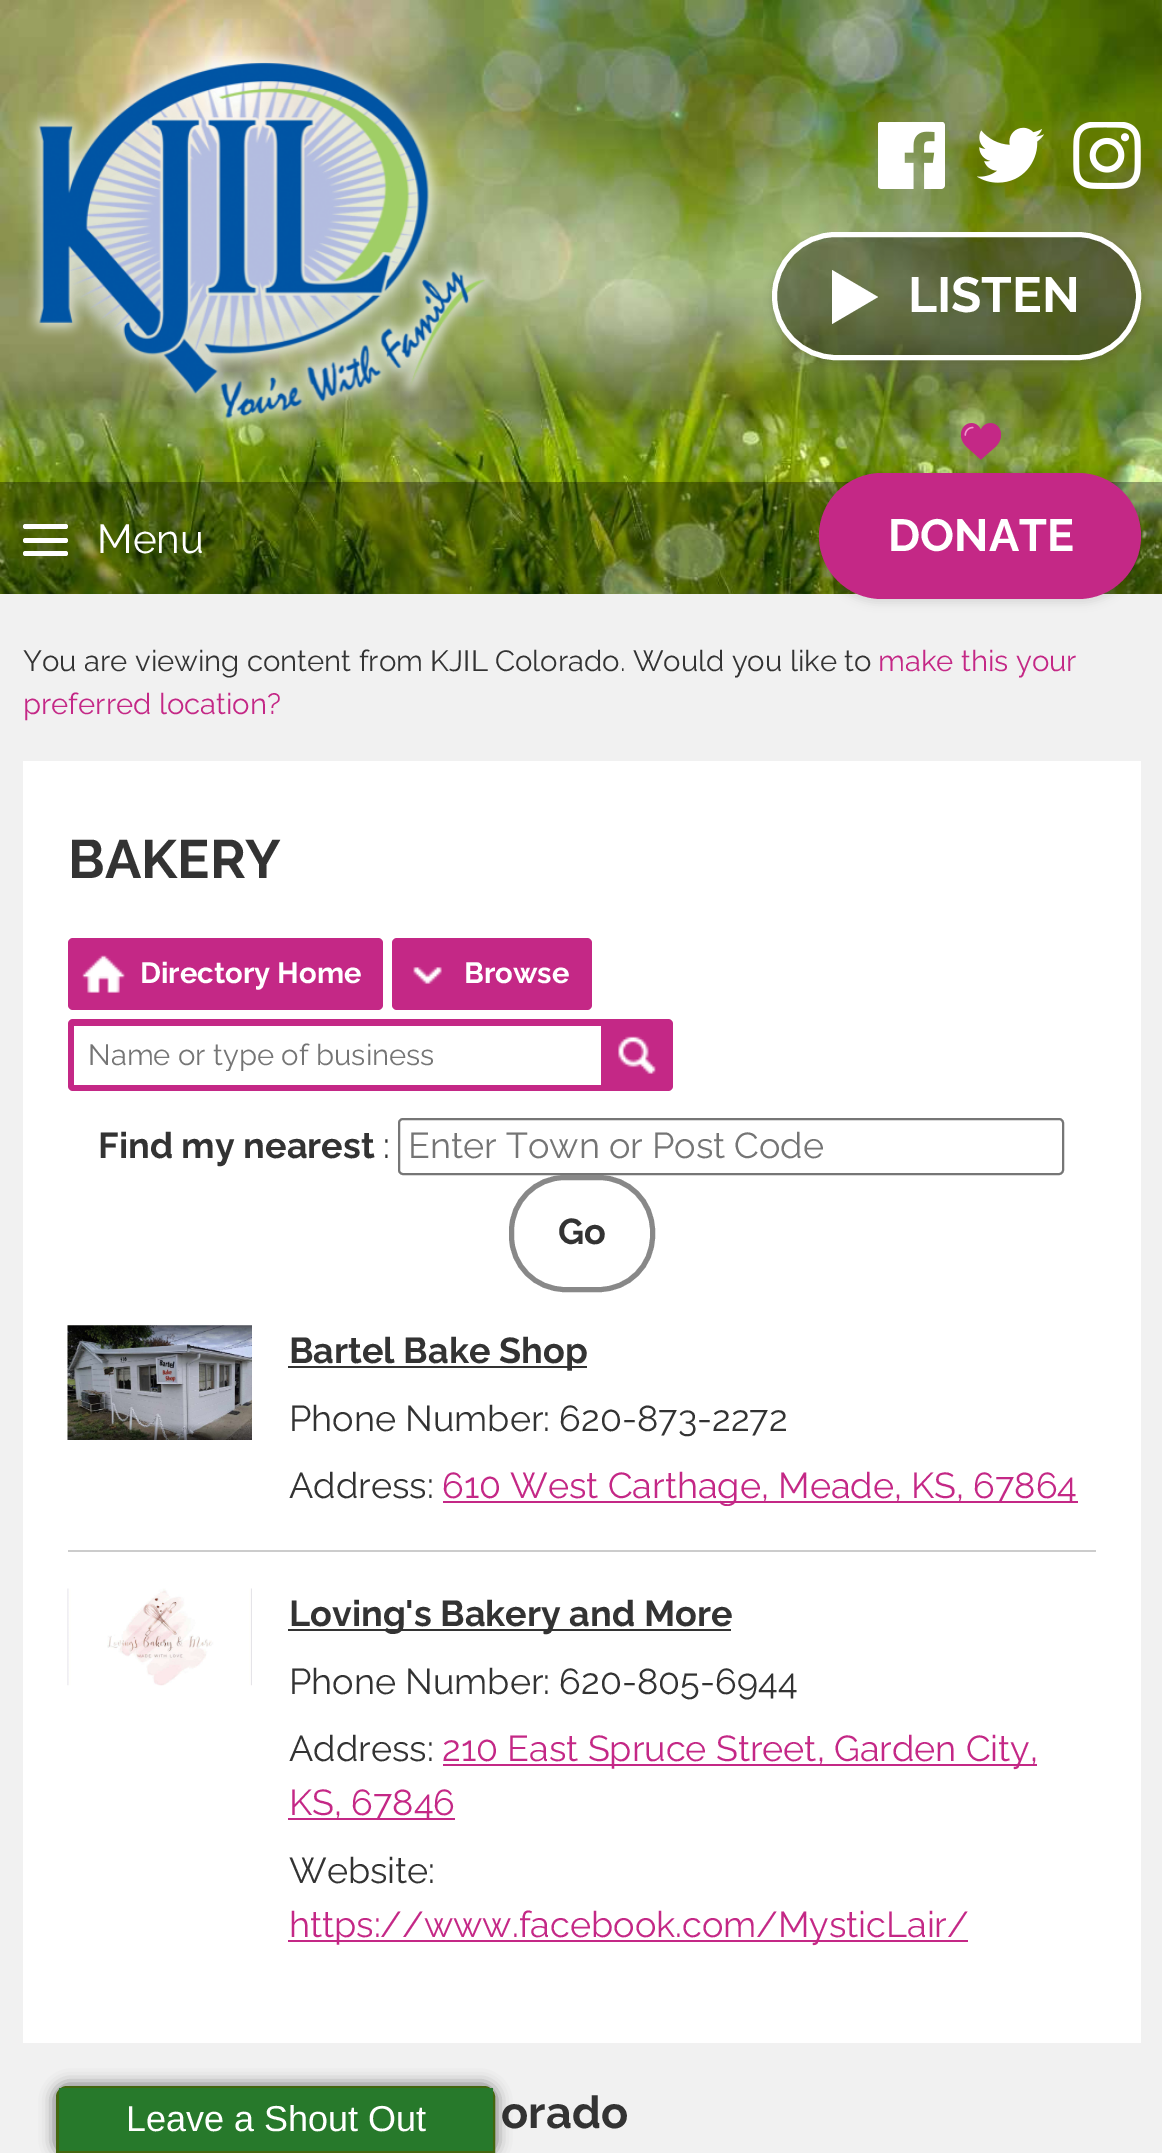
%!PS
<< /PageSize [1162 2153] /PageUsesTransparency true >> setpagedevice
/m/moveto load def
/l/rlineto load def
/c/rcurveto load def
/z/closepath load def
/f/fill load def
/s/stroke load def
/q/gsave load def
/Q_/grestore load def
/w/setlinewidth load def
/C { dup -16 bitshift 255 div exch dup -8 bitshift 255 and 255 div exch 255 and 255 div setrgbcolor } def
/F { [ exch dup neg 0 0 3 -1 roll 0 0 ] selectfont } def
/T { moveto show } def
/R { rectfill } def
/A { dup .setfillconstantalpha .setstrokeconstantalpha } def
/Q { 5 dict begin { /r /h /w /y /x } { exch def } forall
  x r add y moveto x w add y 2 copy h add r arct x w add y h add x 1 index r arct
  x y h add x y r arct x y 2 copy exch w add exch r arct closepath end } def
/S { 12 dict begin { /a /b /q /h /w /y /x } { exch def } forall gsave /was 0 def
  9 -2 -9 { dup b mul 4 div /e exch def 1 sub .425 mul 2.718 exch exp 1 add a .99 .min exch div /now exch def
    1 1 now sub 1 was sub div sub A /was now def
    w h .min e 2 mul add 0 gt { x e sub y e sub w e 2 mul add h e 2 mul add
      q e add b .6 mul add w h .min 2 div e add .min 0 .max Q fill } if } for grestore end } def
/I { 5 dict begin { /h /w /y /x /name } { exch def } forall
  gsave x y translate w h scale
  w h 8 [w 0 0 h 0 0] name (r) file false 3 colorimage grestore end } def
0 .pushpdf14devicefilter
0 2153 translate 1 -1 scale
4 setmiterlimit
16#F1F1F1 C
0 0 1162 2153 R
(1.rgb) 0 0 1162 594 I
(2.rgb) 26 49 471 382 I
(3.rgb) 878 122 67 67 I
(4.rgb) 977 127 67 56 I
(5.rgb) 1073 122 68 67 I
q
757 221 m 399 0 l 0 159 l -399 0 l z 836 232 m 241 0 l 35.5 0 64 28.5 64 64 c 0 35.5 -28.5 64 -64 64 c -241 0 l -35.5 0 -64 -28.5 -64 -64 c 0 -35.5 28.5 -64 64 -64 c z eoclip newpath
16#000000 C
772 236 369 129 64.5 4.5 .15 S
Q_
0.35 A
16#000000 C
774.5 234.5 364 123 61.5 Q f
1 A
16#FFFFFF C
5 w
774.5 234.5 364 123 61.5 Q s
832 324 m 0 -54 l 46 27 l z f
/Raleway-Bold 49.5 F
(LISTEN) 908 312 T
0.35 A
16#000000 C
0 482 1162 112 R
1 A
16#FFFFFF C
23 524 45 5 2.5 Q f
23 538 45 5 2.5 Q f
23 551 45 5 2.5 Q f
/Raleway-Regular 40.5 F
(Menu) 97 553 T
16#000000 C
819 477 322 126 63 4.5 .1 S
16#C42886 C
819 473 322 126 63 Q f
(6.rgb) 961 423 40 37 I
/Raleway-Bold 45 F
16#FFFFFF C
(DONATE) 888 551 T
/Raleway-Regular 29.25 F
16#333333 C
(You are viewing content from KJIL Colorado. Would you like to) 23 671 T
16#C42886 C
(make this your) 878 671 T
(preferred location?) 23 714 T
16#FFFFFF C
23 761 1118 1282 R
/Raleway-Bold 54 F
16#333333 C
(BAKERY) 68 878 T
16#C42886 C
68 938 315 72 5 Q f
(7.rgb) 82 955 43 38 I
/Raleway-Bold 29.25 F
16#FFFFFF C
(Directory Home) 140 983 T
16#C42886 C
392 938 200 72 5 Q f
(8.rgb) 413 967 29 17 I
16#FFFFFF C
(Browse) 464 983 T
16#C42886 C
68 1019 605 72 5 Q f
16#FFFFFF C
74 1026 527 59 R
q
74 1037 527 34 rectclip
/Raleway-Regular 29.25 F
16#757575 C
(Name or type of business) 88 1065 T
Q_
(9.rgb) 618 1036 38 38 I
/Raleway-Bold 36 F
16#333333 C
(Find my nearest) 98 1158 T
/Raleway-Regular 36 F
(:) 383 1158 T
16#767676 C
2 w
399 1119 664 55 4 Q s
16#757575 C
(Enter Town or Post Code) 408 1158 T
16#888888 C
5 w
511.5 1177.5 141 112 53.5 Q s
/Raleway-Bold 36 F
16#333333 C
(Go) 558 1244 T
(10.rgb) 67 1325 185 115 I
288 1366 299 2 R
(Bartel Bake Shop) 289 1363 T
/Raleway-Regular 36 F
(Phone Number: 620-873-2272) 289 1431 T
(Address:) 289 1498 T
16#C42886 C
443 1501 635 2 R
(610 West Carthage, Meade, KS, 67864) 442 1498 T
16#CCCCCC C
68 1550 1028 2 R
(11.rgb) 67 1588 185 98 I
16#333333 C
288 1629 443 2 R
/Raleway-Bold 36 F
(Loving's Bakery and More) 289 1626 T
/Raleway-Regular 36 F
(Phone Number: 620-805-6944) 289 1694 T
(Address:) 289 1761 T
16#C42886 C
443 1764 594 2 R
(210 East Spruce Street, Garden City,) 442 1761 T
288 1818 167 2 R
(KS, 67846) 289 1815 T
16#333333 C
(Website:) 289 1883 T
16#C42886 C
288 1940 680 2 R
(https://www.facebook.com/MysticLair/) 289 1937 T
/Raleway-Bold 45 F
16#333333 C
(orado) 501 2128 T
16#000000 C
54 2084 443 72 14 7 .5 S
16#43660E C
67 2087 m 417 0 l 5.5 0 10 4.5 10 10 c 0 55 l -437 0 l 0 -55 l 0 -5.5 4.5 -10 10 -10 c z q f Q_
2 w
s
16#27792B C
59 2088 434 63 R
/LiberationSans-Regular 36 F
16#FFFFFF C
(Leave a Shout Out) 126 2131 T
.poppdf14devicefilter showpage
